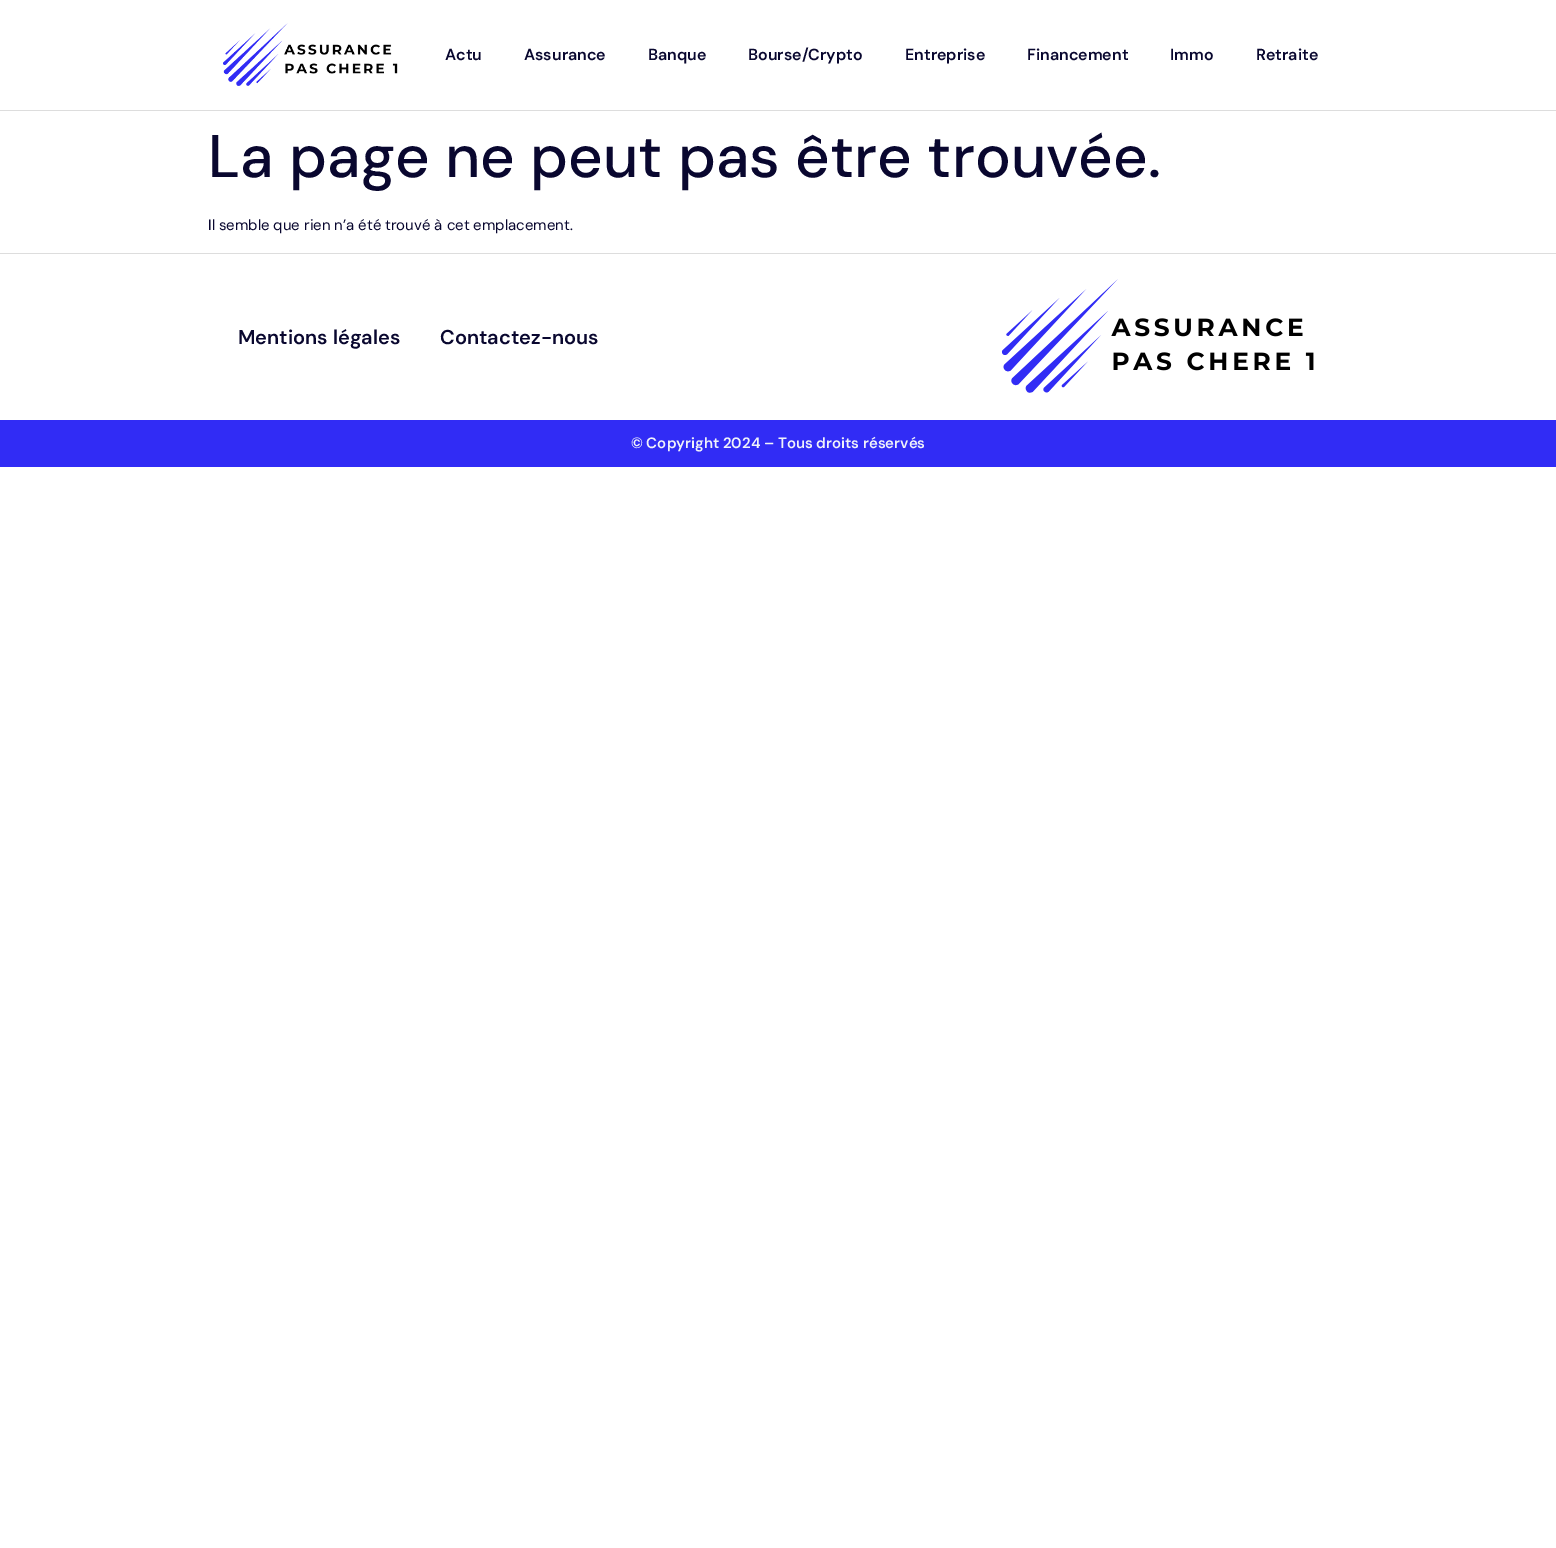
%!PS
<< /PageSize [1556 1548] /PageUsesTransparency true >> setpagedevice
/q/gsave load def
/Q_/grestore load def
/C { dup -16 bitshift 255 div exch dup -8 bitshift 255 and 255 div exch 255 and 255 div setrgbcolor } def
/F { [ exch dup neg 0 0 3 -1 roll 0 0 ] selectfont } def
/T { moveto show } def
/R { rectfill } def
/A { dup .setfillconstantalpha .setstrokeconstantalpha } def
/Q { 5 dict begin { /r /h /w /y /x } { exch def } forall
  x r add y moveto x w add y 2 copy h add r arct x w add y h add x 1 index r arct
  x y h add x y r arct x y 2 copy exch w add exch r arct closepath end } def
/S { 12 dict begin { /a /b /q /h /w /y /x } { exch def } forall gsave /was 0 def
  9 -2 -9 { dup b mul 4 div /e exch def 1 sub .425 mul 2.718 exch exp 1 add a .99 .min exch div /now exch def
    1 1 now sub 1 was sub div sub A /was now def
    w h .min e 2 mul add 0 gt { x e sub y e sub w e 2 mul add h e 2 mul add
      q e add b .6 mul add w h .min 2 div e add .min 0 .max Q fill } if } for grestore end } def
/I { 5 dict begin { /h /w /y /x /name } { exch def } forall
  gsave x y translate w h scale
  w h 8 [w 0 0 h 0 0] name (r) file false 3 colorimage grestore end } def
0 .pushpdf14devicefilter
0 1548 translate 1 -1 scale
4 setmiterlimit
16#FFFFFF C
0 0 1556 1548 R
q
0 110 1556 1 rectclip
16#000000 C
0 0 1556 110 0 .5 .5 S
Q_
(1.rgb) 223 23 175 63 I
/DMSans-SemiBold 16 F
16#09072F C
(Actu) 445 60 T
(Assurance) 524 60 T
(Banque) 648 60 T
(Bourse/Crypto) 748 60 T
(Entreprise) 905 60 T
(Financement) 1027 60 T
(Immo) 1170 60 T
(Retraite) 1256 60 T
/DMSans-Medium 60 F
(La page ne peut pas être trouvée.) 208 177 T
/DMSans-Regular 15 F
(Il semble que rien n’a été trouvé à cet emplacement.) 208 230 T
q
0 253 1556 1 rectclip
16#000000 C
0 254 1556 166 0 .5 .5 S
Q_
/DMSans-SemiBold 20 F
(Mentions légales) 238 344 T
(Contactez-nous) 440 344 T
(2.rgb) 1001 279 313 114 I
16#312CF5 C
0 420 1556 47 R
/DMSans-SemiBold 15 F
16#F0F2FA C
(© Copyright 2024 – Tous droits réservés) 631 448 T
.poppdf14devicefilter showpage
